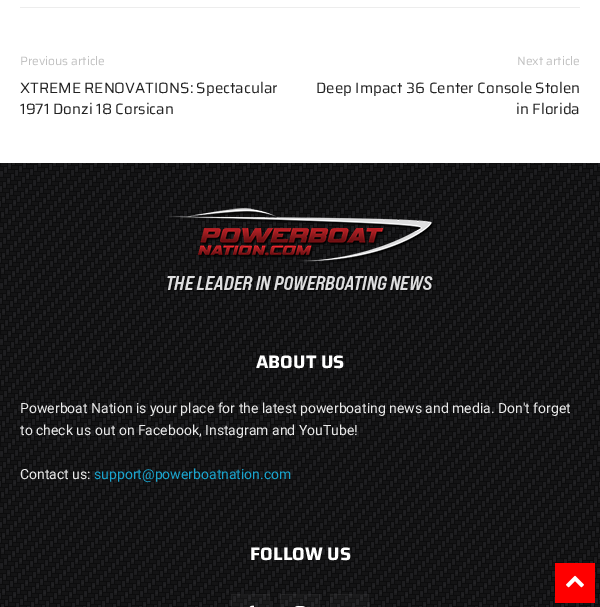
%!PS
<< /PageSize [600 607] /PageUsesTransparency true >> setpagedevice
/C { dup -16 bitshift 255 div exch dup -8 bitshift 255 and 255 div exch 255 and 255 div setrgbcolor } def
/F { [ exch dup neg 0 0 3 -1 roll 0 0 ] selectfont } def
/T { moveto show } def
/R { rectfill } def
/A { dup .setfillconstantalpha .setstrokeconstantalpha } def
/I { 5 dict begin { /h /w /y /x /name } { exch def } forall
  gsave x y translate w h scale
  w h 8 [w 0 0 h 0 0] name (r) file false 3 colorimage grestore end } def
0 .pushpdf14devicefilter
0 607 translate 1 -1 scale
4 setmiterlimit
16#FFFFFF C
0 0 600 607 R
16#EDEDED C
20 7 560 1 R
/Saira-Regular 12 F
16#C1C1C1 C
(Previous article) 20 65 T
/Saira-Regular 15 F
16#222222 C
(XTREME RENOVATIONS: Spectacular) 20 93 T
(1971 Donzi 18 Corsican) 20 114 T
/Saira-Regular 12 F
16#C1C1C1 C
(Next article) 517 65 T
/Saira-Regular 15 F
16#222222 C
(Deep Impact 36 Center Console Stolen) 316 93 T
(in Florida) 516 114 T
(1.rgb) 0 163 600 444 I
(2.rgb) 167 208 267 84 I
/Saira-Bold 18 F
16#FFFFFF C
(ABOUT US) 256 368 T
/Roboto-Regular 14 F
16#EAEAEA C
(Powerboat Nation is your place for the latest powerboating news and media. Don't forget) 20 413 T
(to check us out on Facebook, Instagram and YouTube!) 20 435 T
(Contact us:) 20 479 T
16#1AA4CE C
(support@powerboatnation.com) 94 479 T
/Saira-Bold 18 F
16#FFFFFF C
(FOLLOW US) 250 560 T
0.03 A
231 594 39 13 R
231.5 594.5 38 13 rectstroke
1 A
(3.rgb) 249 605 5 2 I
0.03 A
280 594 40 13 R
280.5 594.5 39 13 rectstroke
1 A
(4.rgb) 295 606 10 1 I
0.03 A
330 594 39 13 R
330.5 594.5 38 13 rectstroke
1 A
16#FF0000 C
555 563 40 40 R
(5.rgb) 566 575 18 13 I
.poppdf14devicefilter showpage
